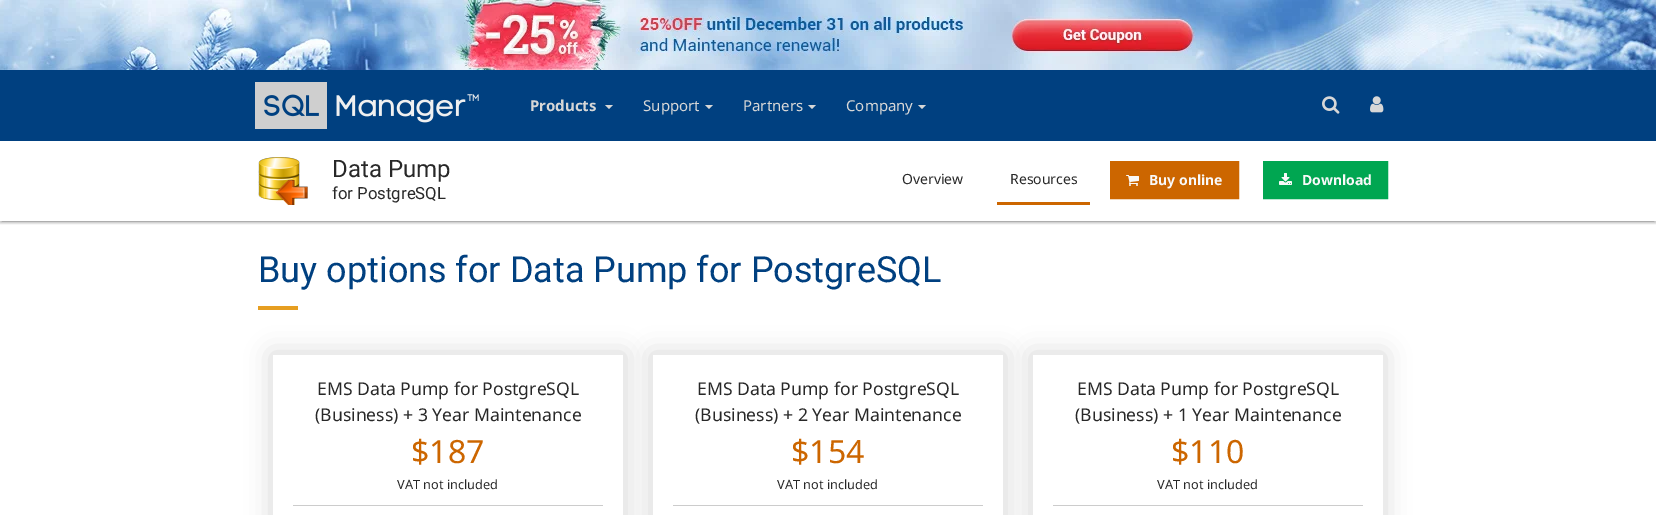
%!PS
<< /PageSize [1656 515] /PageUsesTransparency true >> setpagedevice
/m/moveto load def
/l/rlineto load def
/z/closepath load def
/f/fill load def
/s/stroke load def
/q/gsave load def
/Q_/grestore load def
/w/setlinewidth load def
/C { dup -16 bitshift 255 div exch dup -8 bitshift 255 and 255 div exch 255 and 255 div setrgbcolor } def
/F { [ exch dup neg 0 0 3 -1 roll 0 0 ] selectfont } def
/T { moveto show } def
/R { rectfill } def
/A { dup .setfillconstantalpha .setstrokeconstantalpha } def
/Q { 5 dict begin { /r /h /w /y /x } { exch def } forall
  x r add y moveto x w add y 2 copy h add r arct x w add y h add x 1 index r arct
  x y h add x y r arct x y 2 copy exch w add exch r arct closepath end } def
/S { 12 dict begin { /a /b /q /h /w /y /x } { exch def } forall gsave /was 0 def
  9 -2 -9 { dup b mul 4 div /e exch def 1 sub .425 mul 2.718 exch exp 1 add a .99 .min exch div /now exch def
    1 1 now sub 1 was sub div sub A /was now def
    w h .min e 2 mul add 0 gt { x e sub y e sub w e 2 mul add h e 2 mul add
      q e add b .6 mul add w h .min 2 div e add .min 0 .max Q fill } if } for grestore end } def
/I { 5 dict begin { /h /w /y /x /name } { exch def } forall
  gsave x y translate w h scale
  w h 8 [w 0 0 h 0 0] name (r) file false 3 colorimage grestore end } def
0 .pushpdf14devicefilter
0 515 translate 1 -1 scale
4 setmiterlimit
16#FFFFFF C
0 0 1656 515 R
(1.rgb) 0 0 1656 70 I
q
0 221 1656 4 rectclip
16#000000 C
0 142 1656 80 0 2.5 .2 S
Q_
q
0 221 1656 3 rectclip
16#000000 C
0 143 1656 80 0 1 .14 S
Q_
16#004080 C
0 70 1656 71 R
(2.rgb) 255 82 224 47 I
/NotoSans-Bold 15 F
16#D7D7D7 C
(Products) 530 111 T
605 105 m 8 0 l -4 4 l z f
/NotoSans-Regular 15 F
(Support) 643 111 T
705 105 m 8 0 l -4 4 l z f
(Partners) 743 111 T
808 105 m 8 0 l -4 4 l z f
(Company) 846 111 T
918 105 m 8 0 l -4 4 l z f
(3.rgb) 1322 96 18 18 I
(4.rgb) 1370 96 14 17 I
q
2 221 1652 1 rectclip
16#000000 C
2 146 1652 76 0 .5 .12 S
Q_
(5.rgb) 258 157 50 48 I
/Roboto-Regular 24 F
16#282828 C
(Data Pump) 332 177 T
/Roboto-Regular 16.75 F
(for PostgreSQL) 332 199 T
/NotoSans-Regular 14 F
(Overview) 902 184 T
16#CC6600 C
997 202 93 3 R
16#282828 C
(Resources) 1010 184 T
16#CC6600 C
1111 162 m 127 0 l 0 36 l -127 0 l z q f Q_
2 w
s
(6.rgb) 1126 175 13 11 I
/NotoSans-Bold 14 F
16#F9F9F9 C
(Buy online) 1149 185 T
16#00A651 C
1264 162 m 123 0 l 0 36 l -123 0 l z q f Q_
s
(7.rgb) 1279 173 13 12 I
16#F9F9F9 C
(Download) 1302 185 T
/Roboto-Regular 36 F
16#004080 C
(Buy options for Data Pump for PostgreSQL) 258 282 T
16#E69E21 C
258 306 40 4 R
q
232 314 m 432 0 l 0 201 l -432 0 l z 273 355 m 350 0 l 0 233 l -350 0 l z eoclip newpath
16#000000 C
271 353 354 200 0 12.5 .15 S
Q_
/NotoSans-Regular 17.6 F
16#282828 C
(EMS Data Pump for PostgreSQL) 317 395 T
(\(Business\) + 3 Year Maintenance) 315 421 T
/NotoSans-Regular 32 F
16#CC6600 C
($187) 411 463 T
16#CCCCCC C
293 505 310 1 R
/NotoSans-Regular 12.75 F
16#282828 C
(VAT not included) 397 489 T
q
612 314 m 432 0 l 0 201 l -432 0 l z 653 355 m 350 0 l 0 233 l -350 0 l z eoclip newpath
16#000000 C
651 353 354 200 0 12.5 .15 S
Q_
/NotoSans-Regular 17.6 F
(EMS Data Pump for PostgreSQL) 697 395 T
(\(Business\) + 2 Year Maintenance) 695 421 T
/NotoSans-Regular 32 F
16#CC6600 C
($154) 791 463 T
16#CCCCCC C
673 505 310 1 R
/NotoSans-Regular 12.75 F
16#282828 C
(VAT not included) 777 489 T
q
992 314 m 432 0 l 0 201 l -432 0 l z 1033 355 m 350 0 l 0 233 l -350 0 l z eoclip newpath
16#000000 C
1031 353 354 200 0 12.5 .15 S
Q_
/NotoSans-Regular 17.6 F
(EMS Data Pump for PostgreSQL) 1077 395 T
(\(Business\) + 1 Year Maintenance) 1075 421 T
/NotoSans-Regular 32 F
16#CC6600 C
($110) 1171 463 T
16#CCCCCC C
1053 505 310 1 R
/NotoSans-Regular 12.75 F
16#282828 C
(VAT not included) 1157 489 T
.poppdf14devicefilter showpage
